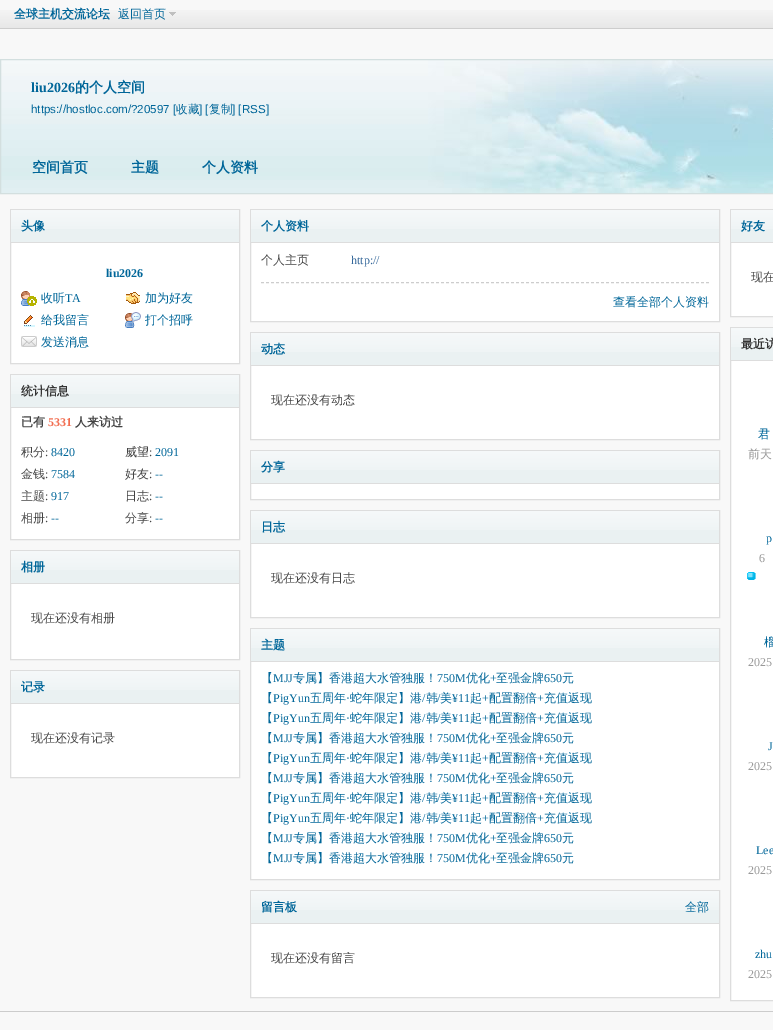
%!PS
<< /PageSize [773 1030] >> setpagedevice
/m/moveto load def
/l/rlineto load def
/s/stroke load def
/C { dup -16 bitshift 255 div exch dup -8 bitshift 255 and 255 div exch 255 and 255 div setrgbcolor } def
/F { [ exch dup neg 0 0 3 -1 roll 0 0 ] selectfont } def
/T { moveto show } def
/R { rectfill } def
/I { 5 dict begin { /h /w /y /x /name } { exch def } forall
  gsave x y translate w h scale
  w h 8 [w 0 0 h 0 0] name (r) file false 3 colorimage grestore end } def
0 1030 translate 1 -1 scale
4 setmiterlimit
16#F8F8F8 C
0 0 773 1030 R
(1.rgb) 0 10 773 18 I
16#CDCDCD C
0 28 773 1 R
/WenQuanYiZenHei-Bold 12 F
16#006699 C
(全球主机交流论坛) 14 18 T
(2.rgb) 169 12 7 4 I
/WenQuanYiZenHei-Medium 12 F
(返回首页) 118 18 T
(3.rgb) 1 60 772 133 I
16#D3DFDF C
.5 59.5 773 134 rectstroke
/LiberationSerif-Bold 14 F
16#006699 C
(liu2026) 31 92 T
/WenQuanYiZenHei-Bold 14 F
(的个人空间) 75 92 T
/LiberationSans-Regular 11.6 F
(https://hostloc.com/?20597 [) 31 113 T
/WenQuanYiZenHei-Medium 11.6 F
(收藏) 176 113 T
/LiberationSans-Regular 11.6 F
(] [) 199 113 T
/WenQuanYiZenHei-Medium 11.6 F
(复制) 209 113 T
/LiberationSans-Regular 11.6 F
(] [RSS]) 232 113 T
/WenQuanYiZenHei-Bold 14 F
(空间首页) 32 172 T
(主题) 131 172 T
(个人资料) 202 172 T
16#FFFFFF C
11 243 228 120 R
16#DDDDDD C
10.5 209.5 229 154 rectstroke
16#EAF1F2 C
11 229 228 13 R
(4.rgb) 11 210 228 19 I
16#DDDDDD C
11 242 228 1 R
/WenQuanYiZenHei-Bold 12 F
16#006699 C
(头像) 21 230 T
/LiberationSerif-Bold 12 F
(liu2026) 106 277 T
(5.rgb) 21 291 16 15 I
/WenQuanYiZenHei-Medium 12 F
(收听) 41 302 T
/LiberationSerif-Regular 12 F
(TA) 65 302 T
(6.rgb) 126 292 14 12 I
/WenQuanYiZenHei-Medium 12 F
(加为好友) 145 302 T
(7.rgb) 24 315 11 12 I
(给我留言) 41 324 T
(8.rgb) 125 312 16 16 I
(打个招呼) 145 324 T
(9.rgb) 21 336 16 11 I
(发送消息) 41 346 T
16#FFFFFF C
11 408 228 131 R
16#DDDDDD C
10.5 374.5 229 165 rectstroke
16#EAF1F2 C
11 394 228 13 R
(4.rgb) 11 375 228 19 I
16#DDDDDD C
11 407 228 1 R
/WenQuanYiZenHei-Bold 12 F
16#333333 C
(统计信息) 21 395 T
16#444444 C
(已有) 21 426 T
/LiberationSerif-Bold 12 F
16#F26C4F C
(5331) 48 426 T
/WenQuanYiZenHei-Bold 12 F
16#444444 C
(人来访过) 75 426 T
/WenQuanYiZenHei-Medium 12 F
(积分) 21 456 T
/LiberationSerif-Regular 12 F
(:) 45 456 T
16#006699 C
(8420) 51 456 T
/WenQuanYiZenHei-Medium 12 F
16#444444 C
(威望) 125 456 T
/LiberationSerif-Regular 12 F
(:) 149 456 T
16#006699 C
(2091) 155 456 T
/WenQuanYiZenHei-Medium 12 F
16#444444 C
(金钱) 21 478 T
/LiberationSerif-Regular 12 F
(:) 45 478 T
16#006699 C
(7584) 51 478 T
/WenQuanYiZenHei-Medium 12 F
16#444444 C
(好友) 125 478 T
/LiberationSerif-Regular 12 F
(:) 149 478 T
16#006699 C
(--) 155 478 T
/WenQuanYiZenHei-Medium 12 F
16#444444 C
(主题) 21 500 T
/LiberationSerif-Regular 12 F
(:) 45 500 T
16#006699 C
(917) 51 500 T
/WenQuanYiZenHei-Medium 12 F
16#444444 C
(日志) 125 500 T
/LiberationSerif-Regular 12 F
(:) 149 500 T
16#006699 C
(--) 155 500 T
/WenQuanYiZenHei-Medium 12 F
16#444444 C
(相册) 21 522 T
/LiberationSerif-Regular 12 F
(:) 45 522 T
16#006699 C
(--) 51 522 T
/WenQuanYiZenHei-Medium 12 F
16#444444 C
(分享) 125 522 T
/LiberationSerif-Regular 12 F
(:) 149 522 T
16#006699 C
(--) 155 522 T
16#FFFFFF C
11 584 228 75 R
16#DDDDDD C
10.5 550.5 229 109 rectstroke
16#EAF1F2 C
11 570 228 13 R
(4.rgb) 11 551 228 19 I
16#DDDDDD C
11 583 228 1 R
/WenQuanYiZenHei-Bold 12 F
16#006699 C
(相册) 21 571 T
/WenQuanYiZenHei-Medium 12 F
16#444444 C
(现在还没有相册) 31 622 T
16#FFFFFF C
11 704 228 73 R
16#DDDDDD C
10.5 670.5 229 107 rectstroke
16#EAF1F2 C
11 690 228 13 R
(4.rgb) 11 671 228 19 I
16#DDDDDD C
11 703 228 1 R
/WenQuanYiZenHei-Bold 12 F
16#006699 C
(记录) 21 691 T
/WenQuanYiZenHei-Medium 12 F
16#444444 C
(现在还没有记录) 31 742 T
16#FFFFFF C
251 243 468 78 R
16#DDDDDD C
250.5 209.5 469 112 rectstroke
16#EAF1F2 C
251 229 468 13 R
(10.rgb) 251 210 468 19 I
16#DDDDDD C
251 242 468 1 R
/WenQuanYiZenHei-Bold 12 F
16#006699 C
(个人资料) 261 230 T
16#CDCDCD C
[3 2] 0 setdash
261 282.5 m 448 0 l s
/WenQuanYiZenHei-Medium 12 F
16#444444 C
(个人主页) 261 264 T
/LiberationSerif-Regular 12 F
16#336699 C
(http://) 351 264 T
/WenQuanYiZenHei-Medium 12 F
16#006699 C
(查看全部个人资料) 613 306 T
16#FFFFFF C
251 366 468 73 R
16#DDDDDD C
[] 0 setdash
250.5 332.5 469 107 rectstroke
16#EAF1F2 C
251 352 468 13 R
(10.rgb) 251 333 468 19 I
16#DDDDDD C
251 365 468 1 R
/WenQuanYiZenHei-Bold 12 F
16#006699 C
(动态) 261 353 T
/WenQuanYiZenHei-Medium 12 F
16#444444 C
(现在还没有动态) 271 404 T
16#FFFFFF C
251 484 468 15 R
16#DDDDDD C
250.5 450.5 469 49 rectstroke
16#EAF1F2 C
251 470 468 13 R
(10.rgb) 251 451 468 19 I
16#DDDDDD C
251 483 468 1 R
/WenQuanYiZenHei-Bold 12 F
16#006699 C
(分享) 261 471 T
16#FFFFFF C
251 544 468 73 R
16#DDDDDD C
250.5 510.5 469 107 rectstroke
16#EAF1F2 C
251 530 468 13 R
(10.rgb) 251 511 468 19 I
16#DDDDDD C
251 543 468 1 R
16#006699 C
(日志) 261 531 T
/WenQuanYiZenHei-Medium 12 F
16#444444 C
(现在还没有日志) 271 582 T
16#FFFFFF C
251 662 468 217 R
16#DDDDDD C
250.5 628.5 469 251 rectstroke
16#EAF1F2 C
251 648 468 13 R
(10.rgb) 251 629 468 19 I
16#DDDDDD C
251 661 468 1 R
/WenQuanYiZenHei-Bold 12 F
16#006699 C
(主题) 261 649 T
/WenQuanYiZenHei-Medium 12 F
(【) 261 682 T
/LiberationSerif-Regular 12 F
(MJJ) 273 682 T
/WenQuanYiZenHei-Medium 12 F
(专属】香港超大水管独服！) 293 682 T
/LiberationSerif-Regular 12 F
(750M) 437 682 T
/WenQuanYiZenHei-Medium 12 F
(优化) 466 682 T
/LiberationSerif-Regular 12 F
(+) 490 682 T
/WenQuanYiZenHei-Medium 12 F
(至强金牌) 496 682 T
/LiberationSerif-Regular 12 F
(650) 544 682 T
/WenQuanYiZenHei-Medium 12 F
(元) 562 682 T
(【) 261 702 T
/LiberationSerif-Regular 12 F
(PigYun) 273 702 T
/WenQuanYiZenHei-Medium 12 F
(五周年) 310 702 T
(蛇年限定】港 韩) 350 702 T
/LiberationSerif-Regular 12 F
(/) 437 702 T
/WenQuanYiZenHei-Medium 12 F
(美) 440 702 T
(起) 470 702 T
(配置翻倍) 489 702 T
(充值返现) 544 702 T
/LiberationSerif-Regular 12 F
(·) 346 702 T
(/) 422 702 T
(¥11) 452 702 T
(+) 482 702 T
(+) 537 702 T
/WenQuanYiZenHei-Medium 12 F
(【) 261 722 T
/LiberationSerif-Regular 12 F
(PigYun) 273 722 T
/WenQuanYiZenHei-Medium 12 F
(五周年) 310 722 T
(蛇年限定】港 韩) 350 722 T
/LiberationSerif-Regular 12 F
(/) 437 722 T
/WenQuanYiZenHei-Medium 12 F
(美) 440 722 T
(起) 470 722 T
(配置翻倍) 489 722 T
(充值返现) 544 722 T
/LiberationSerif-Regular 12 F
(·) 346 722 T
(/) 422 722 T
(¥11) 452 722 T
(+) 482 722 T
(+) 537 722 T
/WenQuanYiZenHei-Medium 12 F
(【) 261 742 T
/LiberationSerif-Regular 12 F
(MJJ) 273 742 T
/WenQuanYiZenHei-Medium 12 F
(专属】香港超大水管独服！) 293 742 T
/LiberationSerif-Regular 12 F
(750M) 437 742 T
/WenQuanYiZenHei-Medium 12 F
(优化) 466 742 T
/LiberationSerif-Regular 12 F
(+) 490 742 T
/WenQuanYiZenHei-Medium 12 F
(至强金牌) 496 742 T
/LiberationSerif-Regular 12 F
(650) 544 742 T
/WenQuanYiZenHei-Medium 12 F
(元) 562 742 T
(【) 261 762 T
/LiberationSerif-Regular 12 F
(PigYun) 273 762 T
/WenQuanYiZenHei-Medium 12 F
(五周年) 310 762 T
(蛇年限定】港 韩) 350 762 T
/LiberationSerif-Regular 12 F
(/) 437 762 T
/WenQuanYiZenHei-Medium 12 F
(美) 440 762 T
(起) 470 762 T
(配置翻倍) 489 762 T
(充值返现) 544 762 T
/LiberationSerif-Regular 12 F
(·) 346 762 T
(/) 422 762 T
(¥11) 452 762 T
(+) 482 762 T
(+) 537 762 T
/WenQuanYiZenHei-Medium 12 F
(【) 261 782 T
/LiberationSerif-Regular 12 F
(MJJ) 273 782 T
/WenQuanYiZenHei-Medium 12 F
(专属】香港超大水管独服！) 293 782 T
/LiberationSerif-Regular 12 F
(750M) 437 782 T
/WenQuanYiZenHei-Medium 12 F
(优化) 466 782 T
/LiberationSerif-Regular 12 F
(+) 490 782 T
/WenQuanYiZenHei-Medium 12 F
(至强金牌) 496 782 T
/LiberationSerif-Regular 12 F
(650) 544 782 T
/WenQuanYiZenHei-Medium 12 F
(元) 562 782 T
(【) 261 802 T
/LiberationSerif-Regular 12 F
(PigYun) 273 802 T
/WenQuanYiZenHei-Medium 12 F
(五周年) 310 802 T
(蛇年限定】港 韩) 350 802 T
/LiberationSerif-Regular 12 F
(/) 437 802 T
/WenQuanYiZenHei-Medium 12 F
(美) 440 802 T
(起) 470 802 T
(配置翻倍) 489 802 T
(充值返现) 544 802 T
/LiberationSerif-Regular 12 F
(·) 346 802 T
(/) 422 802 T
(¥11) 452 802 T
(+) 482 802 T
(+) 537 802 T
/WenQuanYiZenHei-Medium 12 F
(【) 261 822 T
/LiberationSerif-Regular 12 F
(PigYun) 273 822 T
/WenQuanYiZenHei-Medium 12 F
(五周年) 310 822 T
(蛇年限定】港 韩) 350 822 T
/LiberationSerif-Regular 12 F
(/) 437 822 T
/WenQuanYiZenHei-Medium 12 F
(美) 440 822 T
(起) 470 822 T
(配置翻倍) 489 822 T
(充值返现) 544 822 T
/LiberationSerif-Regular 12 F
(·) 346 822 T
(/) 422 822 T
(¥11) 452 822 T
(+) 482 822 T
(+) 537 822 T
/WenQuanYiZenHei-Medium 12 F
(【) 261 842 T
/LiberationSerif-Regular 12 F
(MJJ) 273 842 T
/WenQuanYiZenHei-Medium 12 F
(专属】香港超大水管独服！) 293 842 T
/LiberationSerif-Regular 12 F
(750M) 437 842 T
/WenQuanYiZenHei-Medium 12 F
(优化) 466 842 T
/LiberationSerif-Regular 12 F
(+) 490 842 T
/WenQuanYiZenHei-Medium 12 F
(至强金牌) 496 842 T
/LiberationSerif-Regular 12 F
(650) 544 842 T
/WenQuanYiZenHei-Medium 12 F
(元) 562 842 T
(【) 261 862 T
/LiberationSerif-Regular 12 F
(MJJ) 273 862 T
/WenQuanYiZenHei-Medium 12 F
(专属】香港超大水管独服！) 293 862 T
/LiberationSerif-Regular 12 F
(750M) 437 862 T
/WenQuanYiZenHei-Medium 12 F
(优化) 466 862 T
/LiberationSerif-Regular 12 F
(+) 490 862 T
/WenQuanYiZenHei-Medium 12 F
(至强金牌) 496 862 T
/LiberationSerif-Regular 12 F
(650) 544 862 T
/WenQuanYiZenHei-Medium 12 F
(元) 562 862 T
16#FFFFFF C
251 924 468 73 R
16#DDDDDD C
250.5 890.5 469 107 rectstroke
16#EAF1F2 C
251 910 468 13 R
(10.rgb) 251 891 468 19 I
16#DDDDDD C
251 923 468 1 R
/WenQuanYiZenHei-Bold 12 F
16#006699 C
(留言板) 261 911 T
/WenQuanYiZenHei-Medium 12 F
(全部) 685 911 T
16#444444 C
(现在还没有留言) 271 962 T
16#FFFFFF C
731 243 42 73 R
16#DDDDDD C
730.5 209.5 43 107 rectstroke
16#EAF1F2 C
731 229 42 13 R
(11.rgb) 731 210 42 19 I
16#DDDDDD C
731 242 42 1 R
/WenQuanYiZenHei-Bold 12 F
16#006699 C
(好友) 741 230 T
/WenQuanYiZenHei-Medium 12 F
16#444444 C
(现在) 751 281 T
16#FFFFFF C
731 361 42 639 R
16#DDDDDD C
730.5 327.5 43 673 rectstroke
16#EAF1F2 C
731 347 42 13 R
(11.rgb) 731 328 42 19 I
16#DDDDDD C
731 360 42 1 R
/WenQuanYiZenHei-Bold 12 F
16#333333 C
(最近访) 741 348 T
/WenQuanYiZenHei-Medium 12 F
16#006699 C
(君) 758 438 T
16#999999 C
(前天) 748 458 T
/LiberationSerif-Regular 12 F
16#006699 C
(p) 766 542 T
16#999999 C
(6) 759 562 T
(12.rgb) 747 572 9 8 I
/WenQuanYiZenHei-Medium 12 F
16#006699 C
(榴) 764 646 T
/LiberationSerif-Regular 12 F
16#999999 C
(2025) 748 666 T
16#006699 C
(J) 768 750 T
16#999999 C
(2025) 748 770 T
16#006699 C
(Lee) 756 854 T
16#999999 C
(2025) 748 874 T
16#006699 C
(zhu) 755 958 T
16#999999 C
(2025) 748 978 T
16#CCCCCC C
0 1011 773 1 R
showpage
